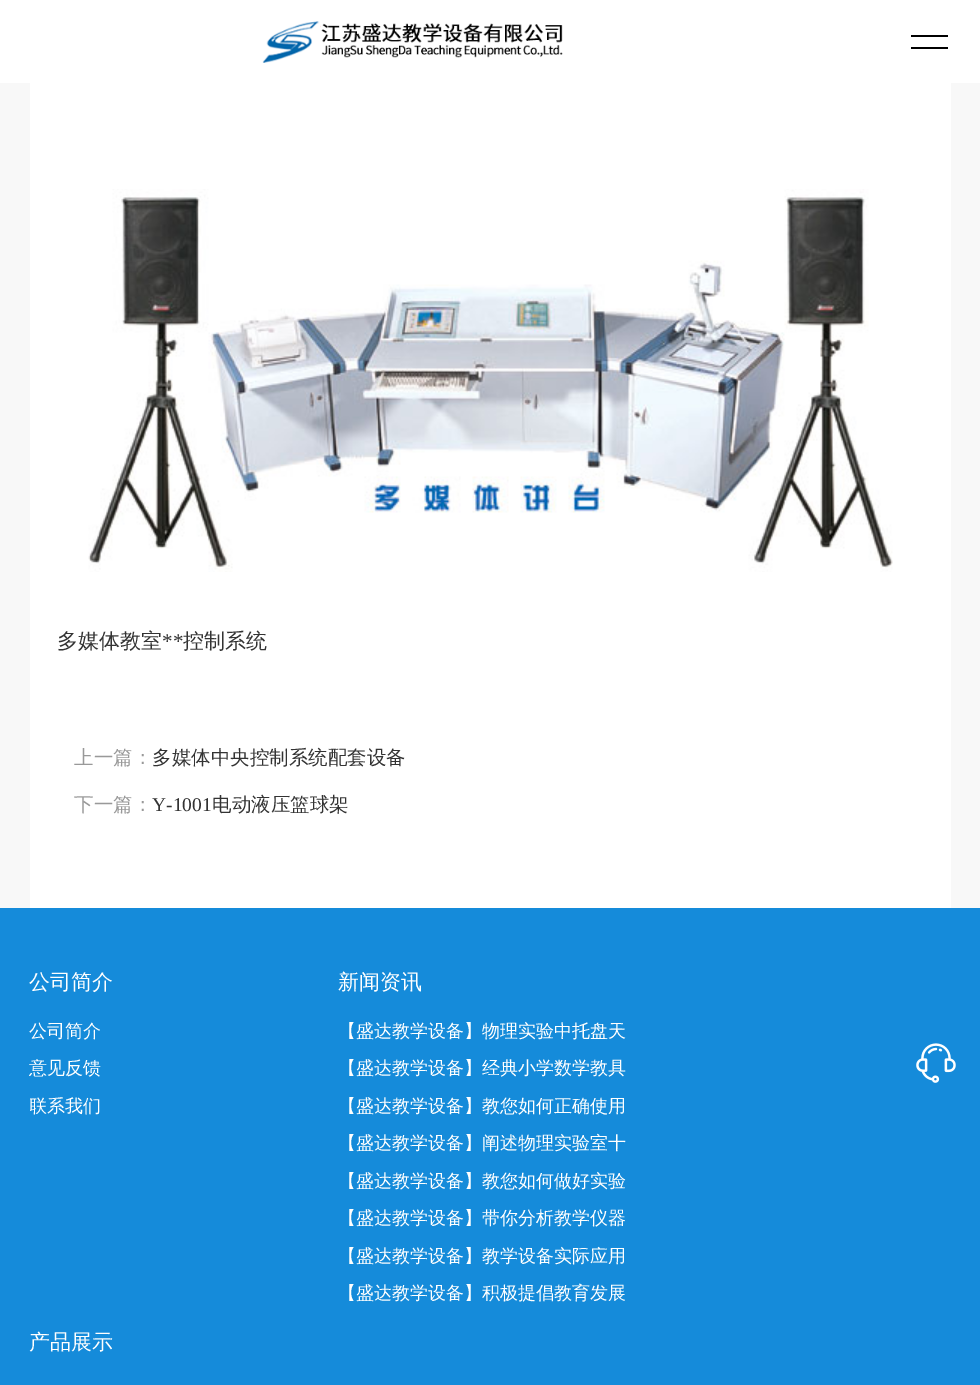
%!PS
<< /PageSize [980 1385] >> setpagedevice
/q/gsave load def
/Q_/grestore load def
/C { dup -16 bitshift 255 div exch dup -8 bitshift 255 and 255 div exch 255 and 255 div setrgbcolor } def
/F { [ exch dup neg 0 0 3 -1 roll 0 0 ] selectfont } def
/T { moveto show } def
/R { rectfill } def
/I { 5 dict begin { /h /w /y /x /name } { exch def } forall
  gsave x y translate w h scale
  w h 8 [w 0 0 h 0 0] name (r) file false 3 colorimage grestore end } def
0 1385 translate 1 -1 scale
4 setmiterlimit
16#F8F8F8 C
0 0 980 1385 R
16#FFFFFF C
0 0 980 83 R
16#000000 C
911 35 37 2 R
911 47 37 2 R
(1.rgb) 262 21 301 42 I
16#FFFFFF C
30 83 921 825 R
(2.rgb) 88 189 805 383 I
/WenQuanYiZenHei-Medium 21 F
16#333333 C
(多媒体教室) 57 648 T
/LiberationSerif-Regular 21 F
(**) 162 648 T
/WenQuanYiZenHei-Medium 21 F
(控制系统) 183 648 T
/WenQuanYiZenHei-Medium 19.5 F
16#999999 C
(上一篇：) 74 764 T
16#333333 C
(多媒体中央控制系统配套设备) 152 764 T
16#999999 C
(下一篇：) 74 811 T
/LiberationSerif-Regular 19.5 F
16#333333 C
(Y-1001) 152 811 T
/WenQuanYiZenHei-Medium 19.5 F
(电动液压篮球架) 212 811 T
16#158BDA C
0 908 980 477 R
/WenQuanYiZenHei-Medium 21 F
16#FFFFFF C
(公司简介) 29 989 T
/WenQuanYiZenHei-Medium 18 F
(公司简介) 29 1037 T
(意见反馈) 29 1074 T
q
30 1088 303 37 rectclip
(联系我们) 29 1112 T
Q_
/WenQuanYiZenHei-Medium 21 F
(新闻资讯) 338 989 T
/WenQuanYiZenHei-Medium 18 F
(【盛达教学设备】物理实验中托盘天) 338 1037 T
(【盛达教学设备】经典小学数学教具) 338 1074 T
(【盛达教学设备】教您如何正确使用) 338 1112 T
(【盛达教学设备】阐述物理实验室十) 338 1149 T
(【盛达教学设备】教您如何做好实验) 338 1187 T
(【盛达教学设备】带你分析教学仪器) 338 1224 T
(【盛达教学设备】教学设备实际应用) 338 1262 T
(【盛达教学设备】积极提倡教育发展) 338 1299 T
/WenQuanYiZenHei-Medium 21 F
(产品展示) 29 1349 T
(3.rgb) 916 1043 40 40 I
showpage
